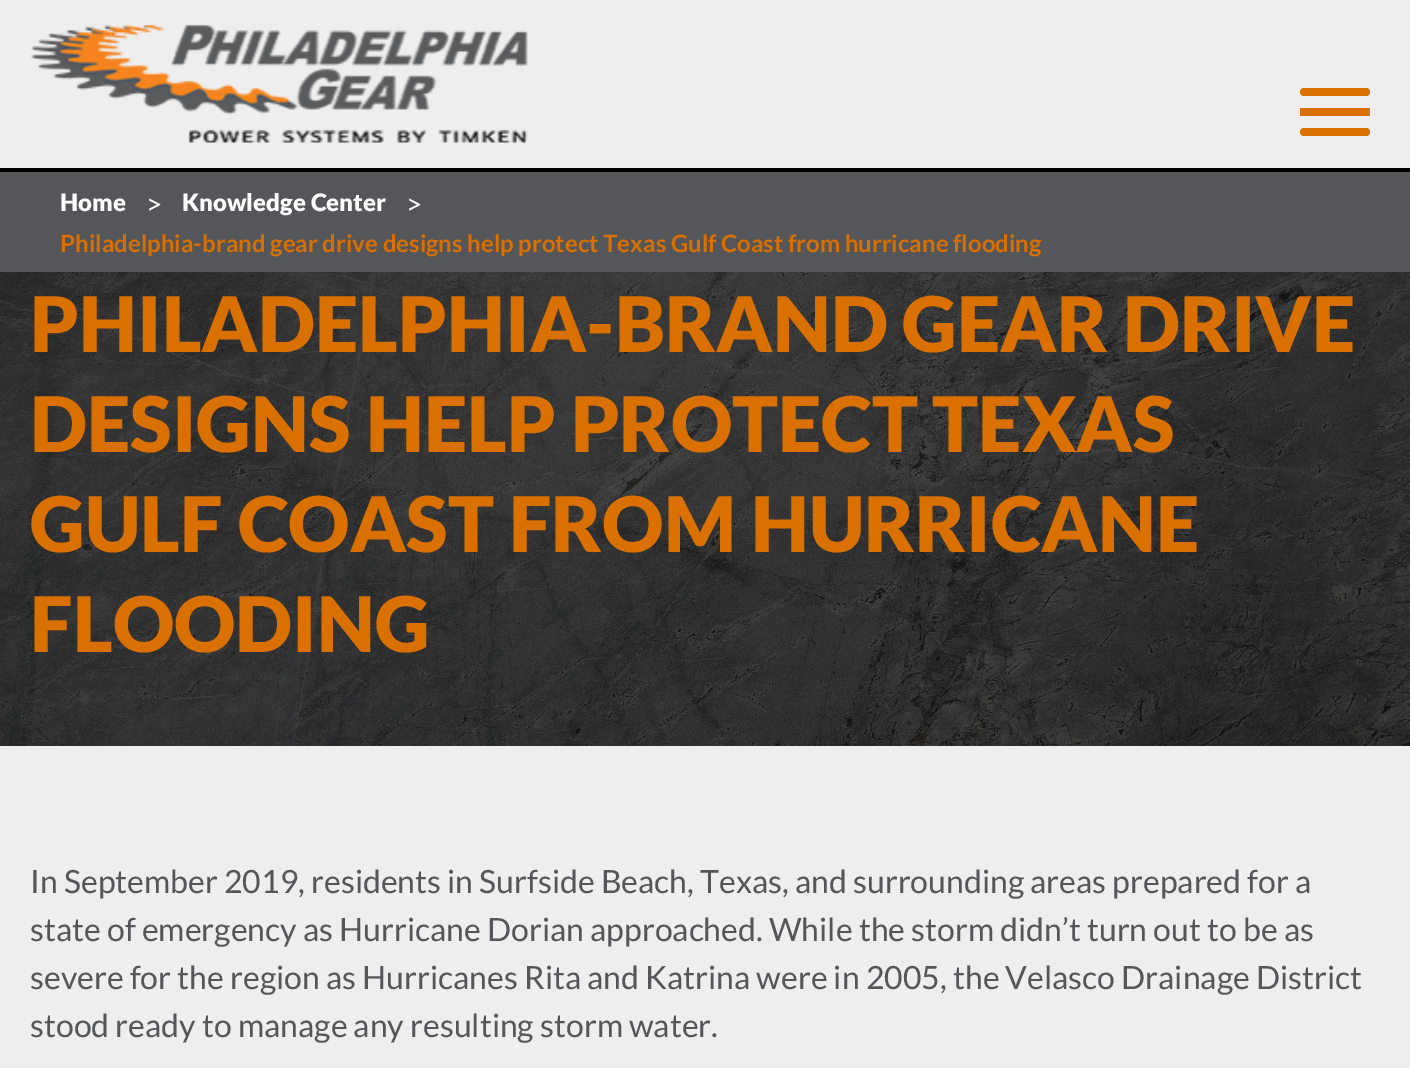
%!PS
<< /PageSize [1410 1068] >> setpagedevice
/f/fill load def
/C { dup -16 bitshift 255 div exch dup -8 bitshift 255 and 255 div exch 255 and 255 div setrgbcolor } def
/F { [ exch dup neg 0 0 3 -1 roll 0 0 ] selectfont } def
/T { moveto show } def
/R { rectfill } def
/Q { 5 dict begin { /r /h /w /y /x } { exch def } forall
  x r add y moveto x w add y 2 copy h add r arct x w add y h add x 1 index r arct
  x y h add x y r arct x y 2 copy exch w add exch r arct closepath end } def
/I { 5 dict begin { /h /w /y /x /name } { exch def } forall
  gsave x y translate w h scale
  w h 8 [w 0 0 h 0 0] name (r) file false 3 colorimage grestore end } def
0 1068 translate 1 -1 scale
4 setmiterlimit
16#FFFFFF C
0 0 1410 1068 R
16#EEEEEE C
0 0 1410 168 R
(1.rgb) 31 24 497 119 I
16#000000 C
0 168 1410 4 R
16#D97000 C
1300 108 70 8 R
1300 88 70 8 4 Q f
1300 128 70 8 4 Q f
16#54565A C
0 172 1410 100 R
/Lato-Black 24 F
16#FFFFFF C
(Home) 60 211 T
/Lato-Regular 28 F
(>) 146 214 T
/Lato-Black 24 F
(Knowledge Center) 182 211 T
/Lato-Regular 28 F
(>) 406 214 T
/Lato-Bold 24 F
16#D97000 C
(Philadelphia-brand gear drive designs help protect Texas Gulf Coast from hurricane flooding) 60 252 T
(2.rgb) 0 272 1410 474 I
/Lato-Black 76.75 F
(PHILADELPHIA-BRAND GEAR DRIVE) 30 352 T
(DESIGNS HELP PROTECT TEXAS) 30 452 T
(GULF COAST FROM HURRICANE) 30 552 T
(FLOODING) 30 652 T
16#EEEEEE C
0 746 1410 322 R
/Lato-Regular 32 F
16#54565A C
(In September 2019, residents in Surfside Beach, Texas, and surrounding areas prepared for a) 30 893 T
(state of emergency as Hurricane Dorian approached. While the storm didn’t turn out to be as) 30 941 T
(severe for the region as Hurricanes Rita and Katrina were in 2005, the Velasco Drainage District) 30 989 T
(stood ready to manage any resulting storm water.) 30 1037 T
showpage
